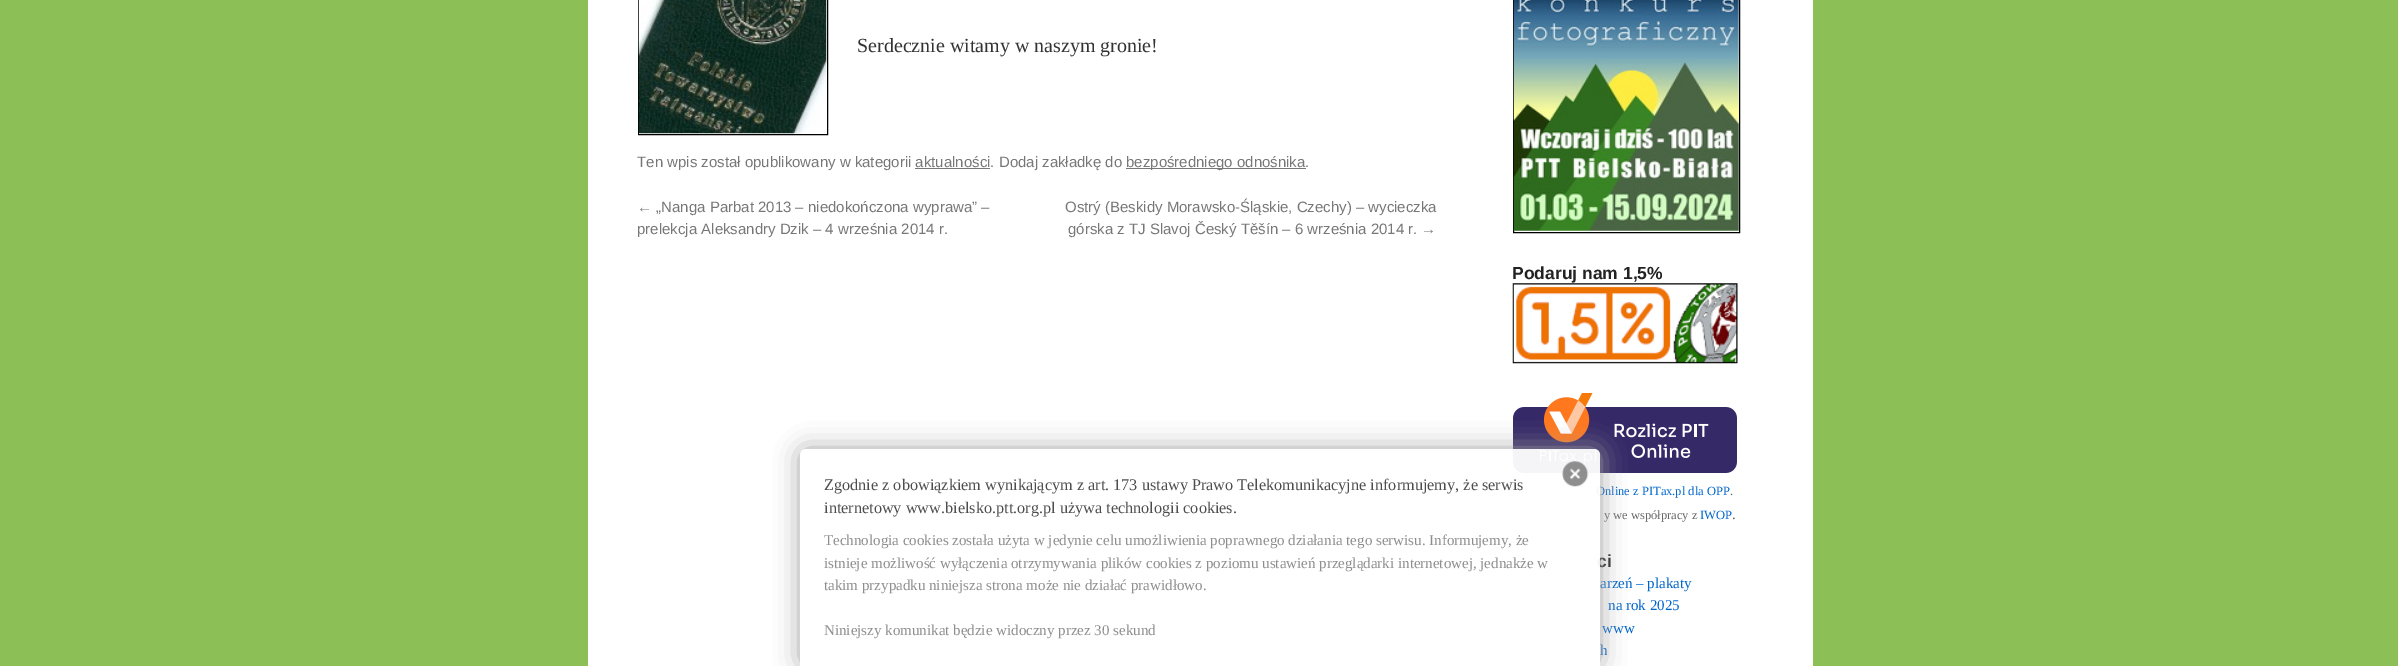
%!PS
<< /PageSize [2398 666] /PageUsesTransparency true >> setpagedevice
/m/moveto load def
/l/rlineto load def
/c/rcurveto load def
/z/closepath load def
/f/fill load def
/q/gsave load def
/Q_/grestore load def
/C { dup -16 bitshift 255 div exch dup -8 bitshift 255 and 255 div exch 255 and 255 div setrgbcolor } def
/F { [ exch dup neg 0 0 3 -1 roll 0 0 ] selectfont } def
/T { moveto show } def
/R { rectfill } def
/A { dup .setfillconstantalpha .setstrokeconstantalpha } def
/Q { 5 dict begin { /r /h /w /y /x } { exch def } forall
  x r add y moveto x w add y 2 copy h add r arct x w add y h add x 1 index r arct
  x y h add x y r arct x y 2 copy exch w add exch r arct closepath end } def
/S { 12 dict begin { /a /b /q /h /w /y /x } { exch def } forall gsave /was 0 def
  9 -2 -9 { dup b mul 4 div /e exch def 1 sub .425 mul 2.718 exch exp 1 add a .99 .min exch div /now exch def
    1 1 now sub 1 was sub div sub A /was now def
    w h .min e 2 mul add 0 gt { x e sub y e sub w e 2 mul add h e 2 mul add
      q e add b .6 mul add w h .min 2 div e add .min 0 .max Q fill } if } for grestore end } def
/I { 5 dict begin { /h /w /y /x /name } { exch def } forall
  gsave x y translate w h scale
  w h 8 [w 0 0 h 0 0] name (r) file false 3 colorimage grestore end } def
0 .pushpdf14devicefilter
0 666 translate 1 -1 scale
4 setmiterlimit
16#8CBF55 C
0 0 2398 666 R
16#FFFFFF C
588 0 1225 666 R
16#000000 C
638.5 -.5 189 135 rectstroke
(1.rgb) 638 0 189 134 I
/LiberationSerif-Regular 20 F
16#333333 C
(Serdecznie witamy w naszym gronie!) 857 52 T
/LiberationSans-Regular 15 F
16#777777 C
(Ten wpis został opublikowany w kategorii aktualności. Dodaj zakładkę do) 637 167 T
1126 168 180 1 R
(bezpośredniego odnośnika.) 1126 167 T
915 168 75 1 R
(← „Nanga Parbat 2013 – niedokończona wyprawa” –) 637 212 T
q
638 195 800 45 rectclip
(prelekcja Aleksandry Dzik – 4 września 2014 r.) 637 234 T
Q_
(Ostrý \(Beskidy Morawsko-Śląskie, Czechy\) – wycieczka) 1065 212 T
(górska z TJ Slavoj Český Těšín – 6 września 2014 r. →) 1068 234 T
16#000000 C
1513.5 -.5 226 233 rectstroke
(2.rgb) 1513 0 226 231 I
/LiberationSans-Bold 17.5 F
16#222222 C
(Podaruj nam 1,5%) 1512 279 T
(3.rgb) 1512 283 226 81 I
(4.rgb) 1513 393 224 80 I
/LiberationSerif-Regular 12.5 F
16#0066CC C
(Online z PITax.pl dla OPP) 1596 495 T
16#666666 C
(.) 1730 495 T
(y we współpracy z) 1604 519 T
16#0066CC C
(IWOP) 1700 519 T
/LiberationSerif-Regular 15 F
16#666666 C
(.) 1732 519 T
/LiberationSans-Bold 17.5 F
16#222222 C
(ci) 1597 567 T
/LiberationSerif-Regular 15 F
16#0066CC C
(arzeń – plakaty) 1600 588 T
(na rok 2025) 1608 610 T
(www) 1602 633 T
(h) 1600 655 T
q
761 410 m 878 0 l 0 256 l -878 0 l z 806 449 m 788 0 l 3.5 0 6 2.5 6 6 c 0 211 l -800 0 l 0 -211 l 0 -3.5 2.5 -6 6 -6 c z eoclip newpath
16#A1A1A1 C
800 449 800 217 6 12.5 .95 S
Q_
0.95 A
16#FFFFFF C
806 449 m 788 0 l 3.5 0 6 2.5 6 6 c 0 211 l -800 0 l 0 -211 l 0 -3.5 2.5 -6 6 -6 c z f
1 A
(5.rgb) 1562 461 27 26 I
/LiberationSerif-Regular 16.25 F
16#4D4D4D C
(Zgodnie z obowiązkiem wynikającym z art. 173 ustawy Prawo Telekomunikacyjne informujemy, że serwis) 824 490 T
(internetowy www.bielsko.ptt.org.pl używa technologii cookies.) 824 513 T
/LiberationSerif-Regular 15 F
16#8E8E8E C
(Technologia cookies została użyta w jedynie celu umożliwienia poprawnego działania tego serwisu. Informujemy, że) 824 545 T
(istnieje możliwość wyłączenia otrzymywania plików cookies z poziomu ustawień przeglądarki internetowej, jednakże w) 824 568 T
(takim przypadku niniejsza strona może nie działać prawidłowo.) 824 590 T
(Niniejszy komunikat będzie widoczny przez 30 sekund) 824 635 T
.poppdf14devicefilter showpage
